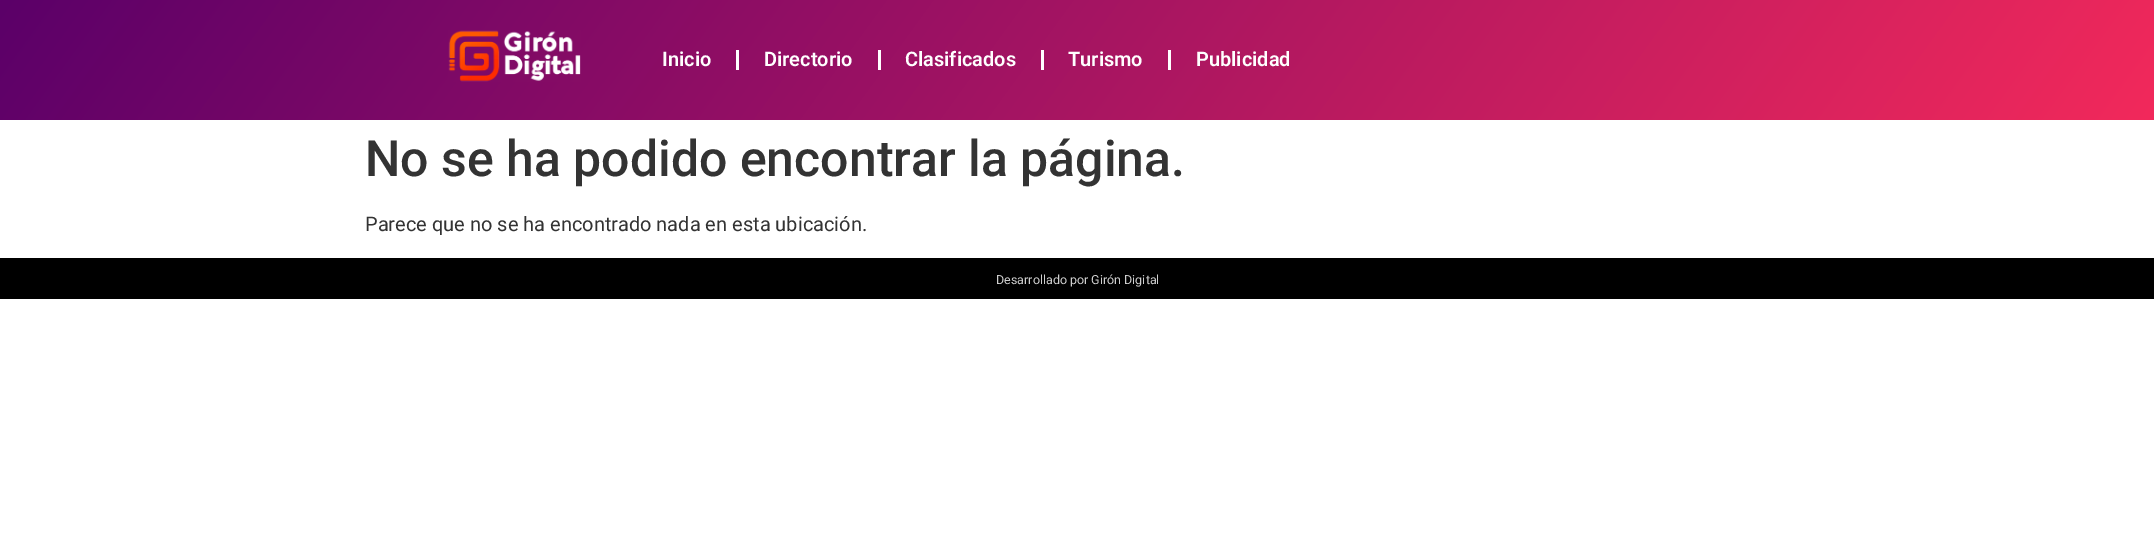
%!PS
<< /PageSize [2154 557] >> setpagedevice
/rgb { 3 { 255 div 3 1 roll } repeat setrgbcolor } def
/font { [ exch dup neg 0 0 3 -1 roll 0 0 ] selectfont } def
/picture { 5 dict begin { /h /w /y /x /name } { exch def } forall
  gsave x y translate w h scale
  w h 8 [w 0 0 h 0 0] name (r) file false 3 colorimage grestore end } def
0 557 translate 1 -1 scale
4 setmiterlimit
255 255 255 rgb
0 0 2154 557 rectfill
gsave 0 0 moveto 2154 0 lineto 2154 120 lineto 0 120 lineto closepath clip newpath
<< /ShadingType 2 /ColorSpace /DeviceRGB /Coords [344 -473 1811 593] /Extend [true true] /Function << /FunctionType 2 /Domain [0 1] /C0 [0.357 0 0.412] /C1 [0.949 0.161 0.357] /N 1 >> >> shfill grestore
(img/1.rgb) 448 30 133 52 picture
[
  [736 50 3 20 255 255 255]
  [878 50 3 20 255 255 255]
  [1041 50 3 20 255 255 255]
  [1168 50 3 20 255 255 255]
  [0 258 2154 41 0 0 0]
] { aload pop rgb rectfill } forall
/Roboto-SemiBold 20 font
255 255 255 rgb
[
  [(Inicio) 662 66]
  [(Directorio) 764 66]
  [(Clasificados) 905 66]
  [(Turismo) 1068 66]
  [(Publicidad) 1196 66]
] { aload pop moveto show } forall
/Roboto-Medium 50 font
51 51 51 rgb
365 176 moveto (No se ha podido encontrar la página.) show
/Roboto-Regular 20 font
365 231 moveto (Parece que no se ha encontrado nada en esta ubicación.) show
/Roboto-Regular 12.5 font
207 207 207 rgb
996 284 moveto (Desarrollado por Girón Digital) show
showpage
